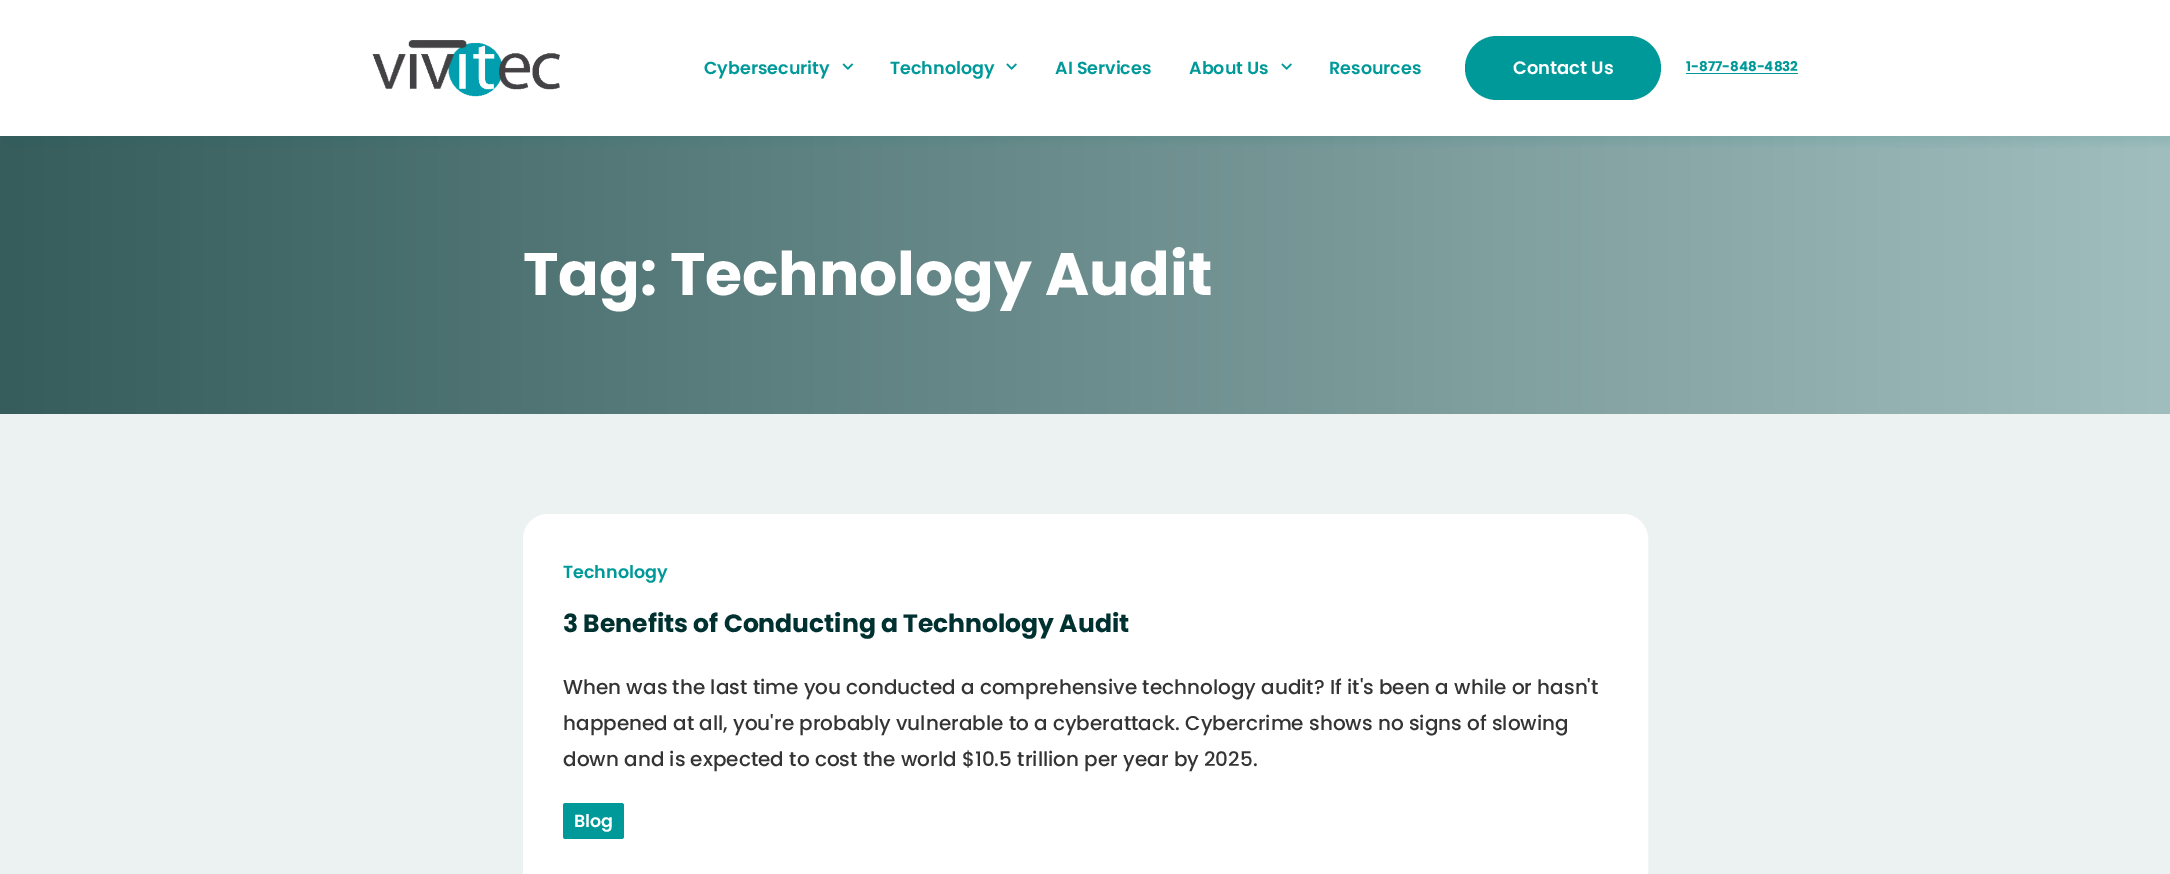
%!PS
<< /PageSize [2170 874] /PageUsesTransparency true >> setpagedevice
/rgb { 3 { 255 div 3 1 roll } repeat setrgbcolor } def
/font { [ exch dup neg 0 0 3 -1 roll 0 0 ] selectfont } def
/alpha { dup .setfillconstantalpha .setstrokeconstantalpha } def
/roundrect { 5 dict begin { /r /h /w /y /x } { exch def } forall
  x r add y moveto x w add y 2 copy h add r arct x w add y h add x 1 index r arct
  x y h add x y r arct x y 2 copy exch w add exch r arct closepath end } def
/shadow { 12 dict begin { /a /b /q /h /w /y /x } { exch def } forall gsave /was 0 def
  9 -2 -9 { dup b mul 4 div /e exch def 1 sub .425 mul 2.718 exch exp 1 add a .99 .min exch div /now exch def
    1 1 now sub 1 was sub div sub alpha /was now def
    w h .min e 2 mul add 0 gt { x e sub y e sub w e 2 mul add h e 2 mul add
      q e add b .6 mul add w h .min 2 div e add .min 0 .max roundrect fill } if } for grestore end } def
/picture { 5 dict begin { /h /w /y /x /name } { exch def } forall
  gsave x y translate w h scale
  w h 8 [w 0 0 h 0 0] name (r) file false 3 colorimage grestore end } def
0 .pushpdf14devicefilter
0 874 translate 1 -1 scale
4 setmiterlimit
255 255 255 rgb
0 0 2170 874 rectfill
gsave 0 136 moveto 2170 136 lineto 2170 414 lineto 0 414 lineto closepath clip newpath
<< /ShadingType 2 /ColorSpace /DeviceRGB /Coords [0 275 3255 275] /Extend [true true] /Function << /FunctionType 2 /Domain [0 1] /C0 [0.212 0.361 0.361] /C1 [0.843 0.937 0.937] /N 1 >> >> shfill grestore
gsave
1 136 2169 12 rectclip
0 113 113 rgb
6 6 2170 137 0 6 0.11 shadow
grestore
(img/1.rgb) 372 40 188 57 picture
(img/2.rgb) 842 63 11 7 picture
(img/3.rgb) 1006 63 11 7 picture
(img/3.rgb) 1281 63 11 7 picture
0 153 153 rgb
1465 36 196 64 32 roundrect fill
1686 73 112 1 rectfill
236 242 242 rgb
0 414 2170 460 rectfill
255 255 255 rgb
524.5 515.5 1122 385 23.5 roundrect gsave fill grestore
3 setlinewidth
stroke
0 153 153 rgb
563 803 61 36 2.5 roundrect fill
/Poppins-SemiBold 17.5 font
[
  [(Cybersecurity) 704 74]
  [(Technology) 890 74]
  [(AI Services) 1055 74]
  [(About Us) 1189 74]
  [(Resources) 1329 74]
] { aload pop moveto show } forall
/Poppins-SemiBold 18 font
255 255 255 rgb
1513 74 moveto (Contact Us) show
/Poppins-Bold 13.5 font
0 153 153 rgb
1686 71 moveto (1-877-848-4832) show
/Poppins-Bold 60 font
255 255 255 rgb
523 295 moveto (Tag: Technology Audit) show
/Poppins-SemiBold 17.5 font
0 153 153 rgb
563 578 moveto (Technology) show
/Poppins-Bold 25 font
0 49 49 rgb
563 632 moveto (3 Benefits of Conducting a Technology Audit) show
/Poppins-Medium 20 font
52 52 52 rgb
[
  [(When was the last time you conducted a comprehensive technology audit? If it's been a while or hasn't) 563 694]
  [(happened at all, you're probably vulnerable to a cyberattack. Cybercrime shows no signs of slowing) 563 730]
  [(down and is expected to cost the world $10.5 trillion per year by 2025.) 563 766]
] { aload pop moveto show } forall
/Poppins-SemiBold 17.5 font
255 255 255 rgb
574 827 moveto (Blog) show
.poppdf14devicefilter showpage
